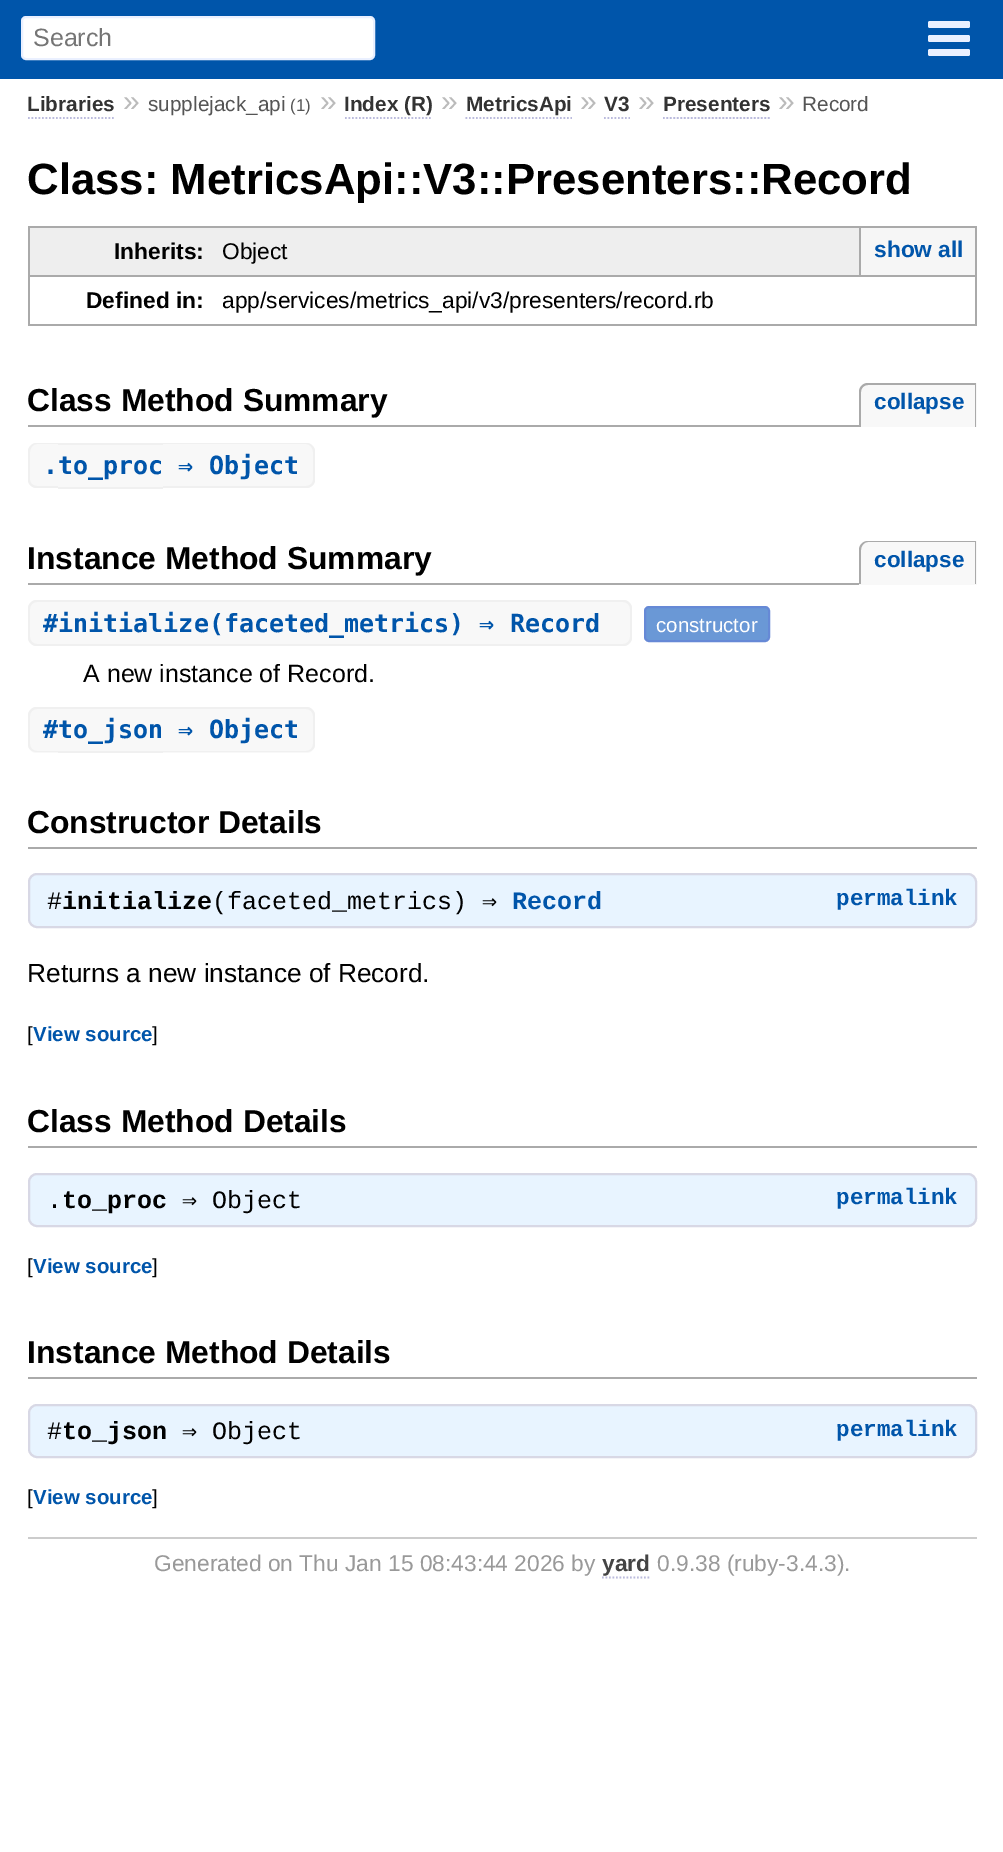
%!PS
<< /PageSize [1003 1852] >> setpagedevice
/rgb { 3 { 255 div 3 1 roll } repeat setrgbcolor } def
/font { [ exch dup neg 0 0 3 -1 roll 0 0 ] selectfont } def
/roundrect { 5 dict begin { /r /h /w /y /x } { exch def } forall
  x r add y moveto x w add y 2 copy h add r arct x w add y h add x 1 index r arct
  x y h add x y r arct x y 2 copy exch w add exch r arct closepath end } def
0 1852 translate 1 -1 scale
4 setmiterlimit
255 255 255 rgb
0 0 1003 1852 rectfill
0 85 170 rgb
0 0 1003 79 rectfill
255 255 255 rgb
22 17 352 42 4 roundrect gsave fill grestore
234 240 255 rgb
2 setlinewidth
stroke
928 21 42 7 2 roundrect fill
928 35 42 7 2 roundrect fill
928 49 42 7 2 roundrect fill
187 187 221 rgb
1.8 setlinewidth
[1.75 1.75] 0 setdash
28 118 moveto 115.5 118 lineto stroke
345 118 moveto 432 118 lineto stroke
465.5 118 moveto 572 118 lineto stroke
604 118 moveto 630 118 lineto stroke
663 118 moveto 770 118 lineto stroke
[
  [30 228 829 47 238 238 238]
  [28 226 949 2 170 170 170]
  [28 226 2 49 170 170 170]
  [28 275 949 2 170 170 170]
  [975 226 2 100 170 170 170]
  [861 228 114 47 246 246 246]
  [859 228 2 47 170 170 170]
  [28 324 194 2 170 170 170]
  [28 275 2 51 170 170 170]
  [222 324 755 2 170 170 170]
  [28 425 831 2 170 170 170]
] { aload pop rgb rectfill } forall
248 248 248 rgb
868 383 moveto 977 383 lineto 977 427 lineto 859 427 lineto 859 392 lineto 859 387 863 383 868 383 curveto closepath fill
170 170 170 rgb
868 383 moveto 976 383 lineto 976 427 lineto 859 427 lineto 859 392 lineto 859 387 863 383 868 383 curveto closepath 868 385 moveto 975 385 lineto 975 427 lineto 861 427 lineto 861 392 lineto 861 388 864 385 868 385 curveto closepath eofill
248 248 248 rgb
37 443 moveto 58 443 lineto 58 488 lineto 37 488 lineto 32 488 28 484 28 479 curveto 28 452 lineto 28 447 32 443 37 443 curveto closepath fill
240 240 240 rgb
37 443 moveto 58 443 lineto 58 488 lineto 37 488 lineto 32 488 28 484 28 480 curveto 28 452 lineto 28 447 32 443 37 443 curveto closepath 37 444 moveto 58 444 lineto 58 486 lineto 37 486 lineto 33 486 30 483 30 480 curveto 30 452 lineto 30 448 33 444 37 444 curveto closepath eofill
[
  [58 445 105 42 248 248 248]
  [58 443 105 2 240 240 240]
  [58 487 105 2 240 240 240]
] { aload pop rgb rectfill } forall
248 248 248 rgb
163 443 moveto 306 443 lineto 311 443 315 447 315 452 curveto 315 479 lineto 315 484 311 488 306 488 curveto 163 488 lineto closepath fill
240 240 240 rgb
163 443 moveto 306 443 lineto 311 443 315 447 315 452 curveto 315 480 lineto 315 484 311 488 306 488 curveto 163 488 lineto closepath 163 444 moveto 306 444 lineto 310 444 313 448 313 452 curveto 313 480 lineto 313 483 310 486 306 486 curveto 163 486 lineto closepath eofill
170 170 170 rgb
28 583 831 2 rectfill
248 248 248 rgb
868 541 moveto 977 541 lineto 977 585 lineto 859 585 lineto 859 550 lineto 859 545 863 541 868 541 curveto closepath fill
170 170 170 rgb
868 541 moveto 976 541 lineto 976 584 lineto 859 584 lineto 859 550 lineto 859 545 863 541 868 541 curveto closepath 868 542 moveto 975 542 lineto 975 584 lineto 861 584 lineto 861 550 lineto 861 546 864 542 868 542 curveto closepath eofill
248 248 248 rgb
37 600 moveto 58 600 lineto 58 646 lineto 37 646 lineto 32 646 28 642 28 637 curveto 28 609 lineto 28 604 32 600 37 600 curveto closepath fill
240 240 240 rgb
37 600 moveto 58 600 lineto 58 646 lineto 37 646 lineto 32 646 28 642 28 637 curveto 28 609 lineto 28 604 32 600 37 600 curveto closepath 37 602 moveto 58 602 lineto 58 644 lineto 37 644 lineto 33 644 30 641 30 637 curveto 30 609 lineto 30 605 33 602 37 602 curveto closepath eofill
[
  [58 602 150 42 248 248 248]
  [58 600 150 2 240 240 240]
  [58 644 150 2 240 240 240]
] { aload pop rgb rectfill } forall
248 248 248 rgb
208 600 moveto 623 600 lineto 628 600 632 604 632 609 curveto 632 637 lineto 632 642 628 646 623 646 curveto 208 646 lineto closepath fill
240 240 240 rgb
208 600 moveto 623 600 lineto 628 600 632 604 632 609 curveto 632 637 lineto 632 642 628 646 623 646 curveto 208 646 lineto closepath 208 602 moveto 623 602 lineto 627 602 630 605 630 609 curveto 630 637 lineto 630 641 627 644 623 644 curveto 208 644 lineto closepath eofill
106 152 214 rgb
645 607 124 34 4 roundrect gsave fill grestore
102 137 214 rgb
2 setlinewidth
[] 0 setdash
stroke
248 248 248 rgb
37 707 moveto 58 707 lineto 58 753 lineto 37 753 lineto 32 753 28 749 28 744 curveto 28 716 lineto 28 711 32 707 37 707 curveto closepath fill
240 240 240 rgb
37 707 moveto 58 707 lineto 58 752 lineto 37 752 lineto 32 752 28 749 28 744 curveto 28 716 lineto 28 711 32 707 37 707 curveto closepath 37 709 moveto 58 709 lineto 58 751 lineto 37 751 lineto 33 751 30 748 30 744 curveto 30 716 lineto 30 712 33 709 37 709 curveto closepath eofill
[
  [58 709 105 42 248 248 248]
  [58 707 105 2 240 240 240]
  [58 751 105 2 240 240 240]
] { aload pop rgb rectfill } forall
248 248 248 rgb
163 707 moveto 306 707 lineto 311 707 315 711 315 716 curveto 315 744 lineto 315 749 311 753 306 753 curveto 163 753 lineto closepath fill
240 240 240 rgb
163 707 moveto 306 707 lineto 311 707 315 711 315 716 curveto 315 744 lineto 315 749 311 752 306 752 curveto 163 752 lineto closepath 163 709 moveto 306 709 lineto 310 709 313 712 313 716 curveto 313 744 lineto 313 748 310 751 306 751 curveto 163 751 lineto closepath eofill
170 170 170 rgb
28 847 949 2 rectfill
232 244 255 rgb
29 874 947 53 8 roundrect gsave fill grestore
216 216 229 rgb
stroke
170 170 170 rgb
28 1146 949 2 rectfill
232 244 255 rgb
29 1174 947 52 8 roundrect gsave fill grestore
216 216 229 rgb
stroke
170 170 170 rgb
28 1377 949 2 rectfill
232 244 255 rgb
29 1405 947 52 8 roundrect gsave fill grestore
216 216 229 rgb
stroke
204 204 204 rgb
28 1537 949 2 rectfill
187 187 221 rgb
1.8 setlinewidth
[1.75 1.75] 0 setdash
602 1577.5 moveto 651 1577.5 lineto stroke
/LiberationSans-Regular 25 font
117 117 117 rgb
33 46 moveto (Search) show
/LiberationSans-Bold 20.75 font
51 51 51 rgb
27 111 moveto (Libraries) show
/LiberationSans-Regular 30 font
187 187 187 rgb
123 111 moveto (») show
/LiberationSans-Regular 20.75 font
85 85 85 rgb
148 111 moveto (supplejack_api) show
/LiberationSans-Regular 17 font
290 111 moveto (\(1\)) show
/LiberationSans-Regular 30 font
187 187 187 rgb
320 111 moveto (») show
/LiberationSans-Bold 20.75 font
51 51 51 rgb
344 111 moveto (Index \(R\)) show
/LiberationSans-Regular 30 font
187 187 187 rgb
441 111 moveto (») show
/LiberationSans-Bold 20.75 font
51 51 51 rgb
466 111 moveto (MetricsApi) show
/LiberationSans-Regular 30 font
187 187 187 rgb
580 111 moveto (») show
/LiberationSans-Bold 20.75 font
51 51 51 rgb
604 111 moveto (V3) show
/LiberationSans-Regular 30 font
187 187 187 rgb
638 111 moveto (») show
/LiberationSans-Bold 20.75 font
51 51 51 rgb
663 111 moveto (Presenters) show
/LiberationSans-Regular 30 font
187 187 187 rgb
778 111 moveto (») show
/LiberationSans-Regular 20.75 font
85 85 85 rgb
802 111 moveto (Record) show
/LiberationSans-Bold 43.75 font
0 0 0 rgb
27 194 moveto (Class: MetricsApi::V3::Presenters::Record) show
/LiberationSans-Bold 22.75 font
114 259 moveto (Inherits:) show
/LiberationSans-Regular 22.75 font
222 259 moveto (Object) show
/LiberationSans-Bold 22.75 font
0 85 170 rgb
874 257 moveto (show all) show
0 0 0 rgb
86 308 moveto (Defined in:) show
/LiberationSans-Regular 22.75 font
222 308 moveto (app/services/metrics_api/v3/presenters/record.rb) show
/LiberationSans-Bold 31.8 font
27 411 moveto (Class Method Summary) show
/LiberationSans-Bold 22.5 font
0 85 170 rgb
874 409 moveto (collapse) show
/DejaVuSansMono-Bold 25 font
43 474 moveto (.to_proc ⇒ Object) show
/LiberationSans-Bold 31.8 font
0 0 0 rgb
27 569 moveto (Instance Method Summary) show
/LiberationSans-Bold 22.5 font
0 85 170 rgb
874 567 moveto (collapse) show
/DejaVuSansMono-Bold 25 font
43 632 moveto (#initialize\(faceted_metrics\) ⇒ Record) show
/LiberationSans-Regular 20.5 font
255 255 255 rgb
656 632 moveto (constructor) show
/LiberationSans-Regular 25 font
0 0 0 rgb
83 682 moveto (A new instance of Record.) show
/DejaVuSansMono-Bold 25 font
0 85 170 rgb
43 738 moveto (#to_json ⇒ Object) show
/LiberationSans-Bold 31.8 font
0 0 0 rgb
27 833 moveto (Constructor Details) show
/LiberationMono-Regular 25 font
47 909 moveto (#) show
/LiberationMono-Bold 25 font
62 909 moveto (initialize) show
/LiberationMono-Regular 25 font
212 909 moveto (\(faceted_metrics\)) show
/DejaVuSansMono-Regular 25 font
482 909 moveto (⇒) show
/LiberationMono-Bold 25 font
0 85 170 rgb
512 909 moveto (Record) show
/LiberationMono-Bold 22.5 font
836 905 moveto (permalink) show
/LiberationSans-Regular 26.25 font
0 0 0 rgb
27 982 moveto (Returns a new instance of Record.) show
/LiberationSans-Regular 20.5 font
27 1041 moveto ([) show
/LiberationSans-Bold 20.5 font
0 85 170 rgb
33 1041 moveto (View source) show
/LiberationSans-Regular 20.5 font
0 0 0 rgb
152 1041 moveto (]) show
/LiberationSans-Bold 31.8 font
27 1132 moveto (Class Method Details) show
/LiberationMono-Regular 25 font
47 1208 moveto (.) show
/LiberationMono-Bold 25 font
62 1208 moveto (to_proc) show
/DejaVuSansMono-Regular 25 font
182 1208 moveto (⇒) show
/LiberationMono-Regular 25 font
212 1208 moveto (Object) show
/LiberationMono-Bold 22.5 font
0 85 170 rgb
836 1204 moveto (permalink) show
/LiberationSans-Regular 20.5 font
0 0 0 rgb
27 1273 moveto ([) show
/LiberationSans-Bold 20.5 font
0 85 170 rgb
33 1273 moveto (View source) show
/LiberationSans-Regular 20.5 font
0 0 0 rgb
152 1273 moveto (]) show
/LiberationSans-Bold 31.8 font
27 1363 moveto (Instance Method Details) show
/LiberationMono-Regular 25 font
47 1439 moveto (#) show
/LiberationMono-Bold 25 font
62 1439 moveto (to_json) show
/DejaVuSansMono-Regular 25 font
182 1439 moveto (⇒) show
/LiberationMono-Regular 25 font
212 1439 moveto (Object) show
/LiberationMono-Bold 22.5 font
0 85 170 rgb
836 1436 moveto (permalink) show
/LiberationSans-Regular 20.5 font
0 0 0 rgb
27 1504 moveto ([) show
/LiberationSans-Bold 20.5 font
0 85 170 rgb
33 1504 moveto (View source) show
/LiberationSans-Regular 20.5 font
0 0 0 rgb
152 1504 moveto (]) show
/LiberationSans-Regular 22.75 font
153 153 153 rgb
154 1571 moveto (Generated on Thu Jan 15 08:43:44 2026 by) show
/LiberationSans-Bold 22.75 font
68 68 68 rgb
602 1571 moveto (yard) show
/LiberationSans-Regular 22.75 font
153 153 153 rgb
657 1571 moveto (0.9.38 \(ruby-3.4.3\).) show
showpage
